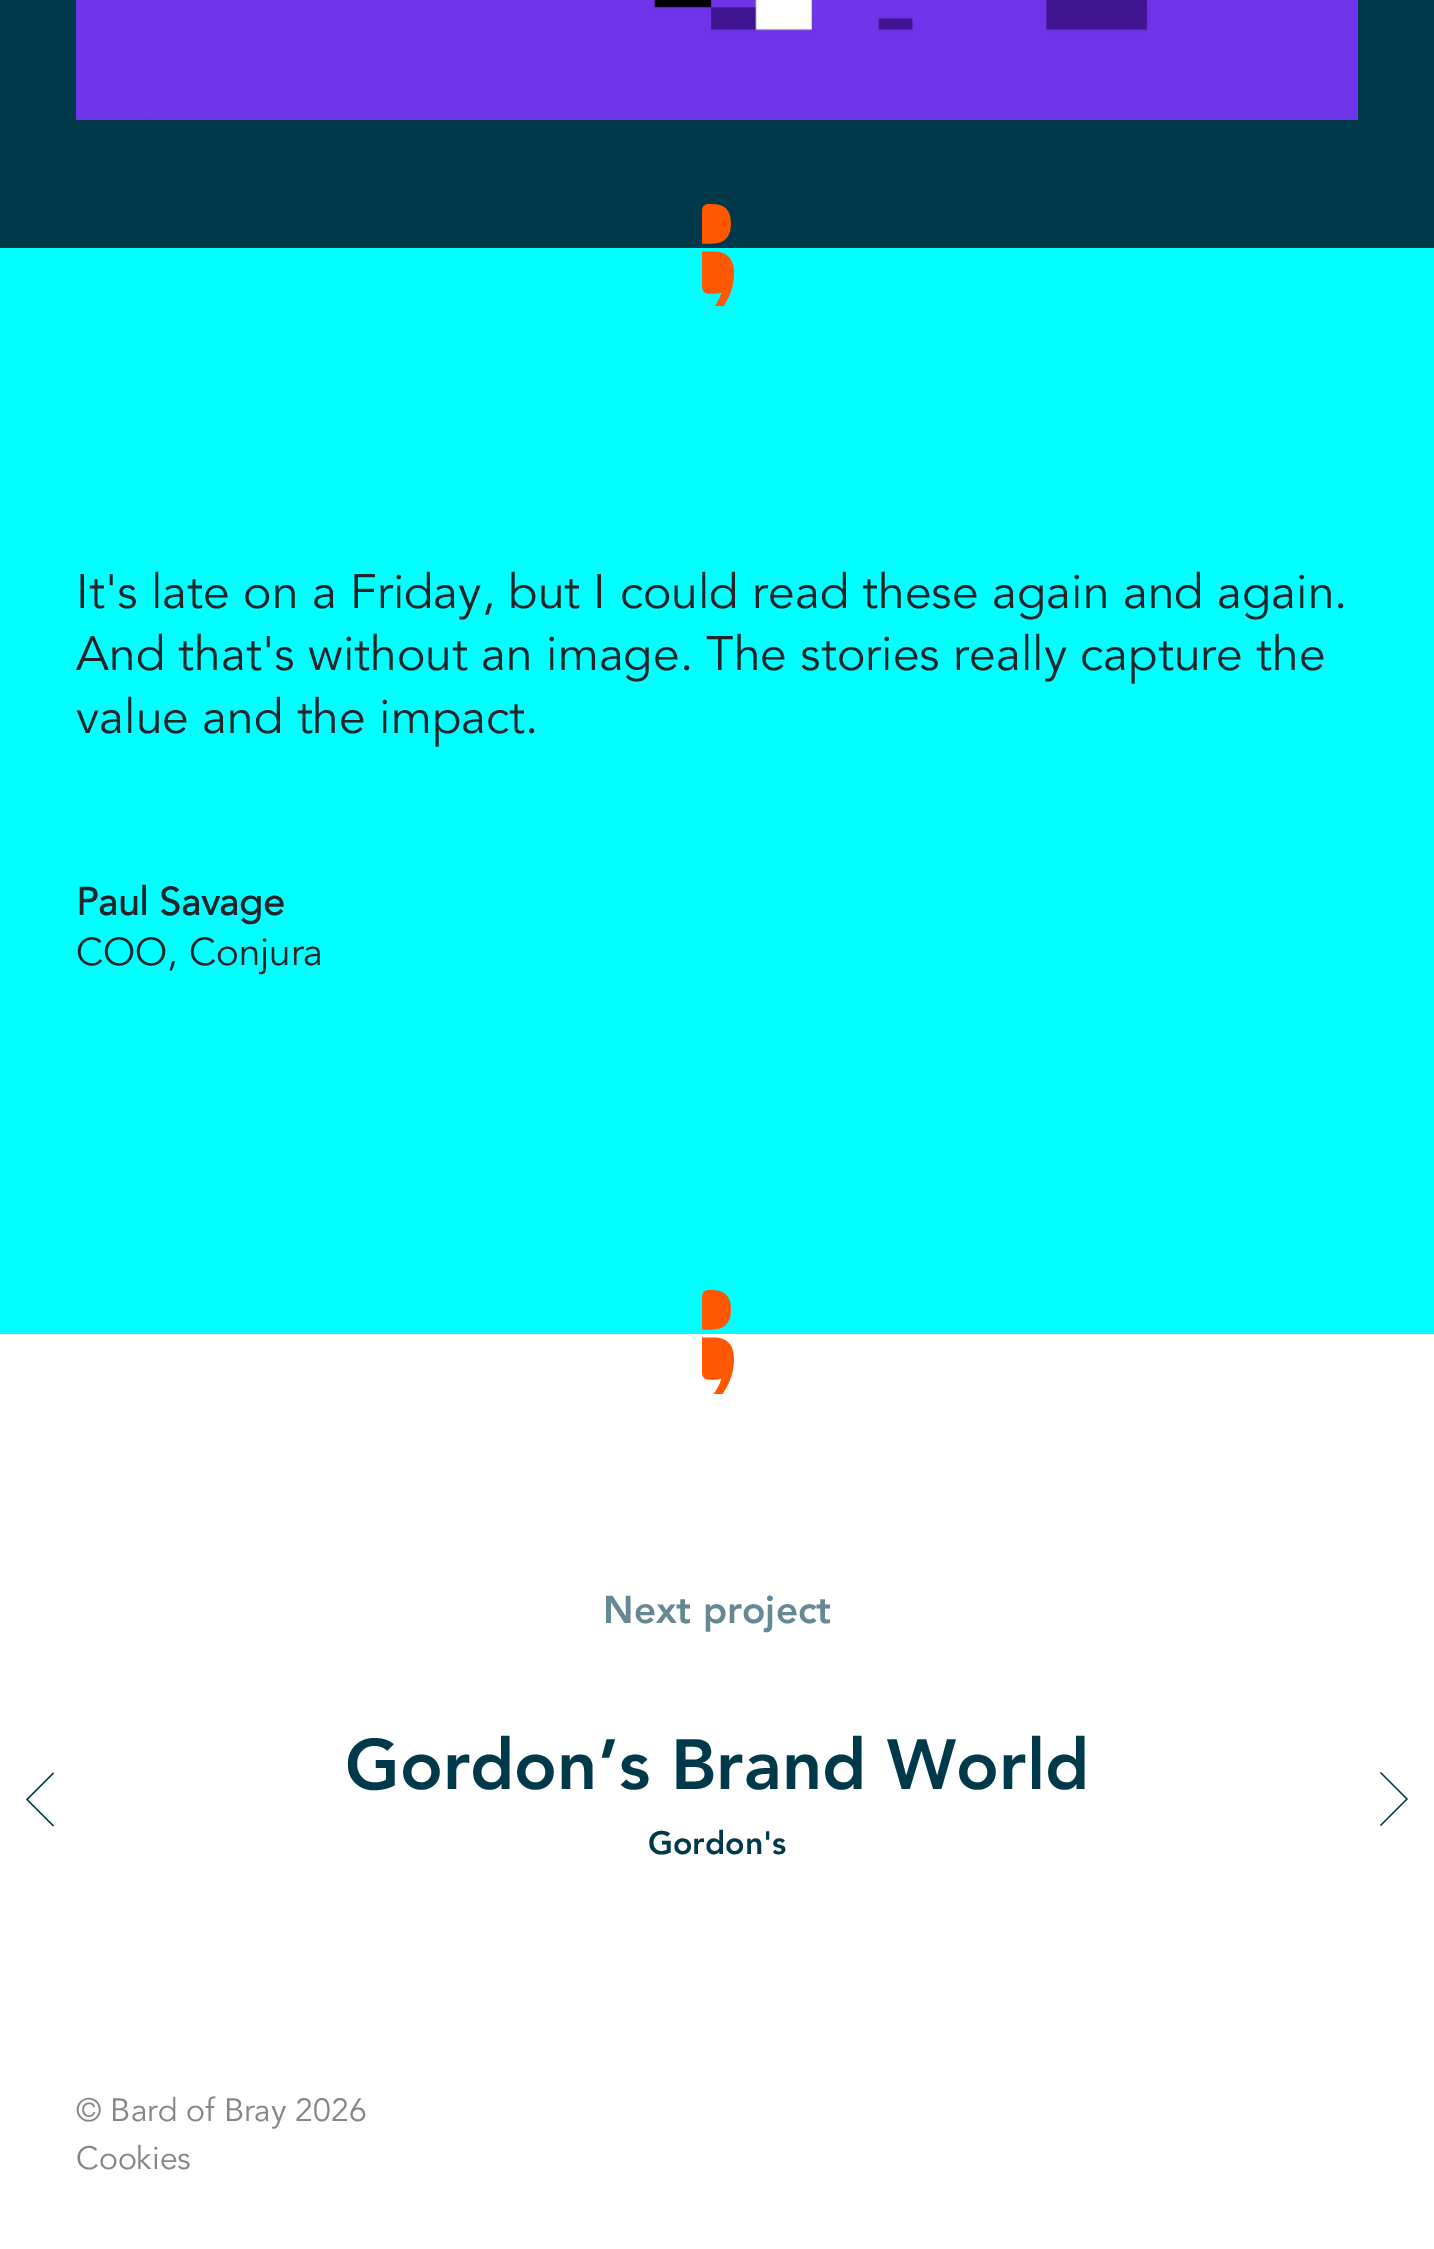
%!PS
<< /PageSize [1434 2249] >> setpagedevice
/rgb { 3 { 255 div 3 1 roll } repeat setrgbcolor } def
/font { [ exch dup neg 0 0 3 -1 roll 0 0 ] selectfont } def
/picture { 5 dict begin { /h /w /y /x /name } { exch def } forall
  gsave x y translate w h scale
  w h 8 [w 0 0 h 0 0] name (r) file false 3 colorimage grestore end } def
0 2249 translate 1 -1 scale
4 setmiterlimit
255 255 255 rgb
0 0 1434 2249 rectfill
0 57 74 rgb
0 0 1434 248 rectfill
(img/1.rgb) 76 0 1282 120 picture
0 255 255 rgb
0 248 1434 1086 rectfill
(img/2.rgb) 702 204 32 102 picture
(img/3.rgb) 702 1290 32 104 picture
0 57 74 rgb
1.4 setlinewidth
53.5 1773 moveto 27 1799.5 lineto 53.5 1826 lineto stroke
1380.5 1825.5 moveto 1407 1799 lineto 1380.5 1772.5 lineto stroke
/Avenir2-Regular 48 font
33 37 41 rgb
[
  [(It's late on a Friday, but I could read these again and again.) 76 608]
  [(And that's without an image. The stories really capture the) 76 670]
  [(value and the impact.) 76 733]
] { aload pop moveto show } forall
/Avenir-Bold 38.5 font
76 915 moveto (Paul Savage) show
/Avenir2-Regular 38.5 font
76 965 moveto (COO, Conjura) show
/Avenir-Regular 38.5 font
102 136 146 rgb
603 1623 moveto (Next project) show
/Avenir-Regular 70.4 font
0 57 74 rgb
345 1789 moveto (Gordon’s Brand World) show
/Avenir-Regular 32 font
648 1854 moveto (Gordon's) show
/Avenir2-Regular 32 font
131 134 135 rgb
76 2121 moveto (© Bard of Bray 2026) show
76 2169 moveto (Cookies) show
showpage
